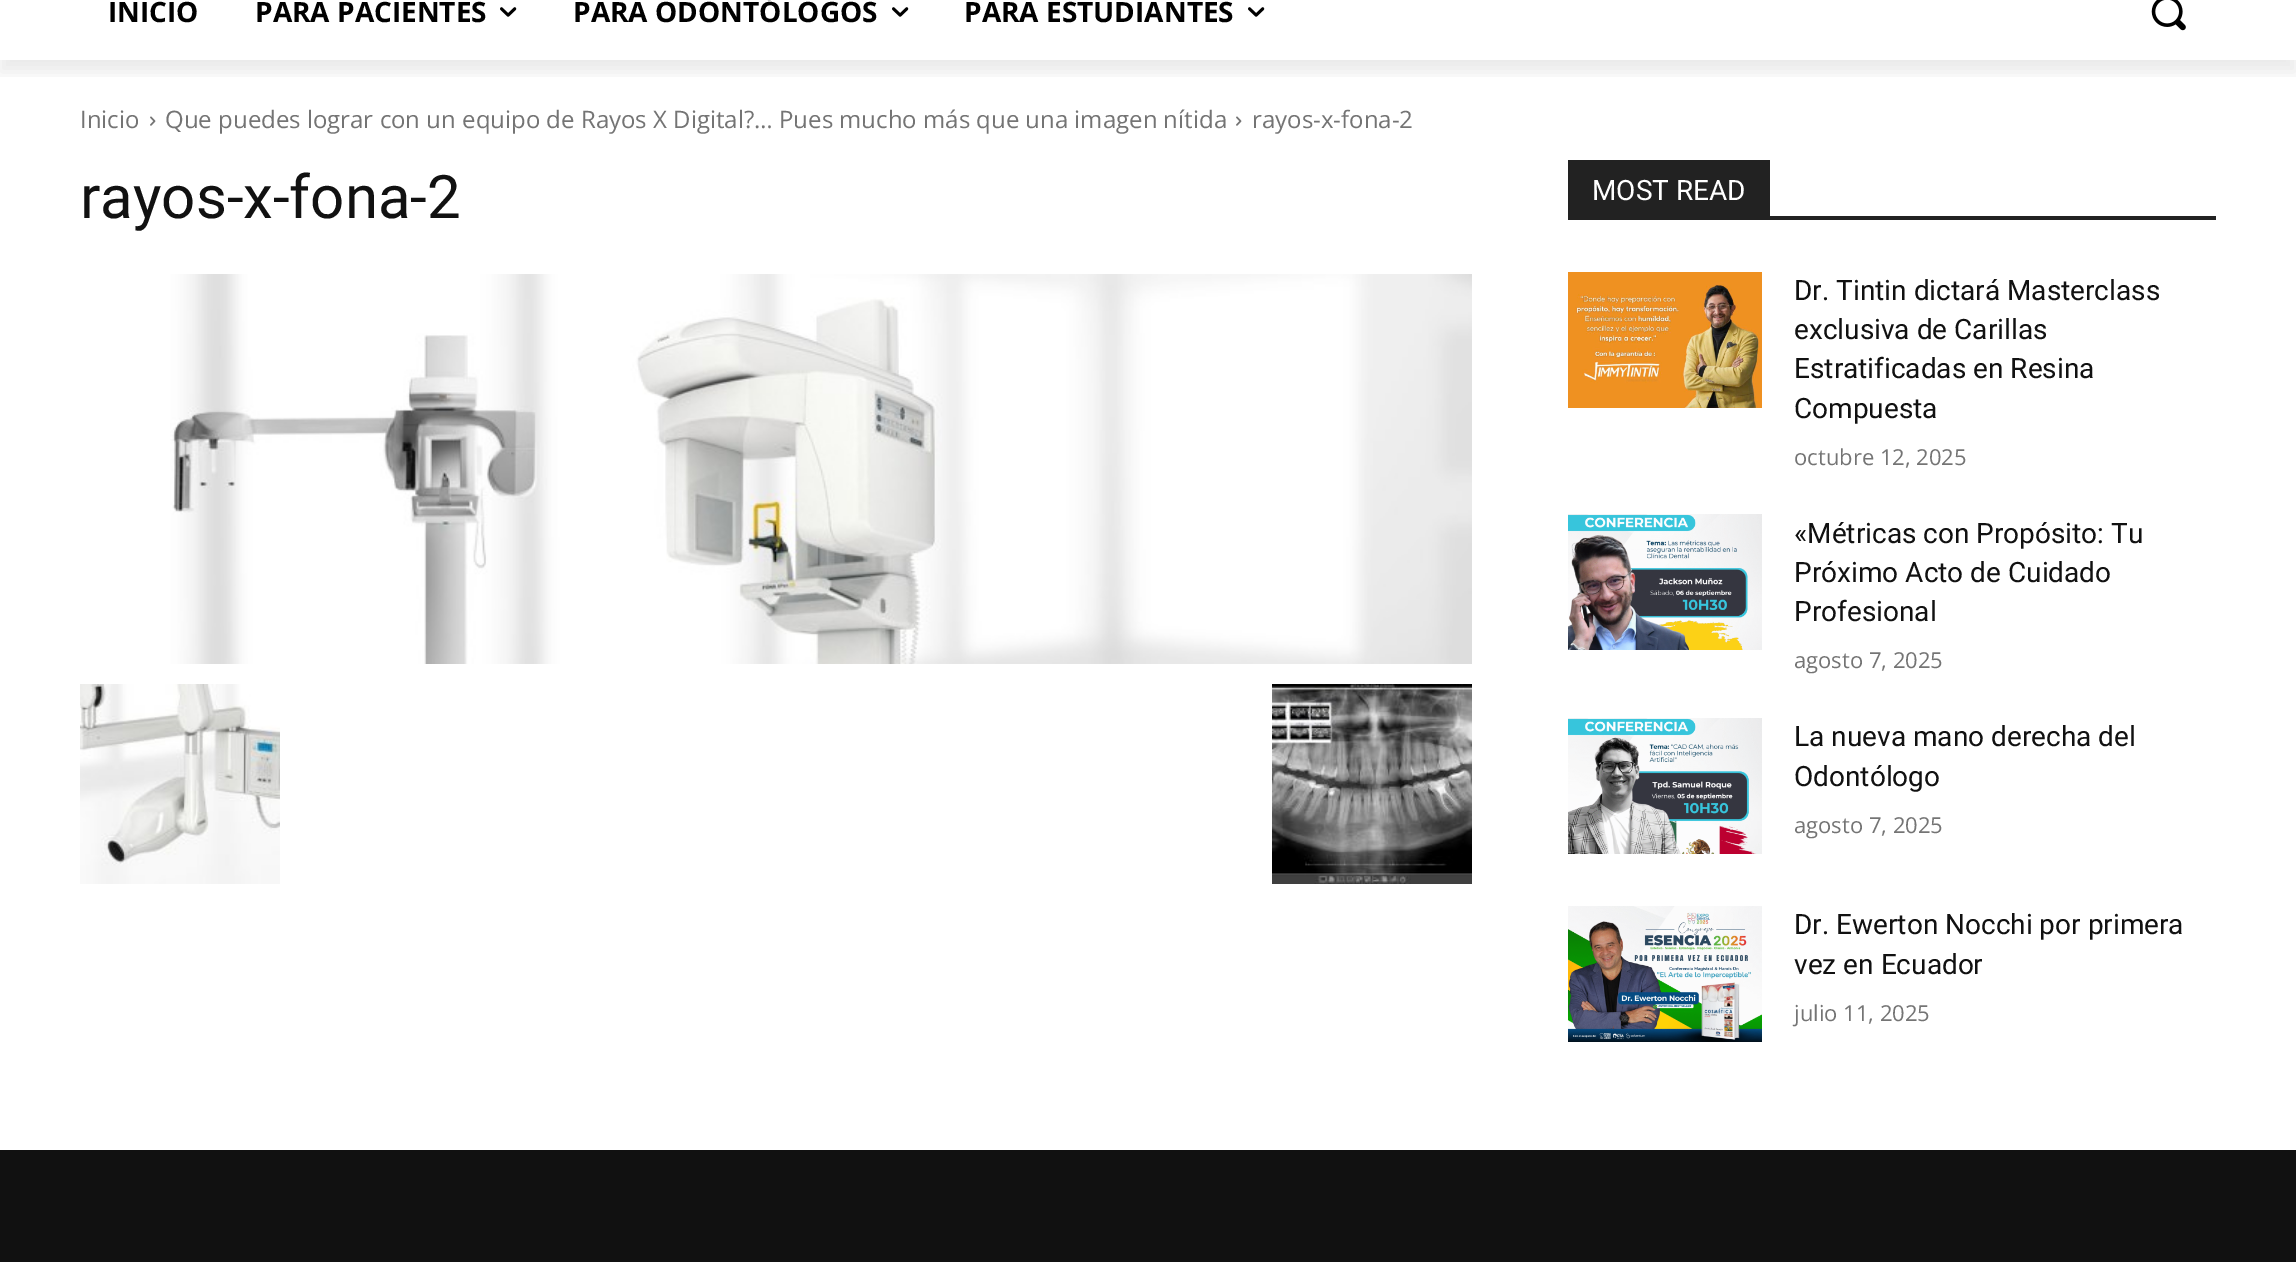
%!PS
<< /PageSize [2296 1262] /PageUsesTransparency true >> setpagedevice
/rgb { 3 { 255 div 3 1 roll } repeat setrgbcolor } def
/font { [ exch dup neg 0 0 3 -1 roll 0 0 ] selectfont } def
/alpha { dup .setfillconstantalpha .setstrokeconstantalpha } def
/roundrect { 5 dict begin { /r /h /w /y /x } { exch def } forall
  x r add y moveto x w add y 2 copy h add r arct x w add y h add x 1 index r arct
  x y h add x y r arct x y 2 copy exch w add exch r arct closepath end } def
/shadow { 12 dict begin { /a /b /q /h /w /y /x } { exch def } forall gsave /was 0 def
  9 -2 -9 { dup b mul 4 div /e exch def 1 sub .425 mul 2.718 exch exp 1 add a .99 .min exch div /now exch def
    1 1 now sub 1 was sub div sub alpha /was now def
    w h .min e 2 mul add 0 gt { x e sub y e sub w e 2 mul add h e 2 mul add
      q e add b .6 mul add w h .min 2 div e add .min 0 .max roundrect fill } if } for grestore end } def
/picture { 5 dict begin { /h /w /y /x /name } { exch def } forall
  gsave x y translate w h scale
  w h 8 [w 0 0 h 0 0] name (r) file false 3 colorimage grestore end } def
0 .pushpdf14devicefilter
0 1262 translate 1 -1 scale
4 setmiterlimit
255 255 255 rgb
0 0 2296 1262 rectfill
gsave
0 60 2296 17 rectclip
0 0 0 rgb
0 -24 2296 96 0 8 0.08 shadow
grestore
(img/1.rgb) 500 7 17 10 picture
(img/1.rgb) 892 7 17 10 picture
(img/1.rgb) 1248 7 17 10 picture
(img/2.rgb) 2151 0 35 31 picture
(img/3.rgb) 150 116 6 10 picture
(img/3.rgb) 1236 116 6 10 picture
(img/4.rgb) 170 274 1302 390 picture
(img/5.rgb) 80 684 200 200 picture
(img/6.rgb) 1272 684 200 200 picture
34 34 34 rgb
1568 216 648 4 rectfill
1568 160 202 56 rectfill
(img/7.rgb) 1568 272 194 136 picture
(img/8.rgb) 1568 514 194 136 picture
(img/9.rgb) 1568 718 194 136 picture
(img/10.rgb) 1568 906 194 136 picture
17 17 17 rgb
0 1150 2296 112 rectfill
/OpenSans-Bold 28 font
0 0 0 rgb
[
  [(INICIO) 108 22]
  [(PARA PACIENTES) 255 22]
  [(PARA ODONTÓLOGOS) 573 22]
  [(PARA ESTUDIANTES) 964 22]
] { aload pop moveto show } forall
/OpenSans-Regular 24 font
116 116 116 rgb
[
  [(Inicio) 80 128]
  [(Que puedes lograr con un equipo de Rayos X Digital?… Pues mucho más que una imagen nítida) 165 128]
  [(rayos-x-fona-2) 1252 128]
] { aload pop moveto show } forall
/Roboto-Regular 60 font
17 17 17 rgb
80 218 moveto (rayos-x-fona-2) show
/Roboto-Regular 28 font
255 255 255 rgb
1592 200 moveto (MOST READ) show
17 17 17 rgb
[
  [(Dr. Tintin dictará Masterclass) 1794 300]
  [(exclusiva de Carillas) 1794 339]
  [(Estratificadas en Resina) 1794 378]
  [(Compuesta) 1794 418]
] { aload pop moveto show } forall
/OpenSans-Regular 22 font
116 116 116 rgb
1794 465 moveto (octubre 12, 2025) show
/Roboto-Regular 28 font
17 17 17 rgb
[
  [(«Métricas con Propósito: Tu) 1794 543]
  [(Próximo Acto de Cuidado) 1794 582]
  [(Profesional) 1794 621]
] { aload pop moveto show } forall
/OpenSans-Regular 22 font
116 116 116 rgb
1794 668 moveto (agosto 7, 2025) show
/Roboto-Regular 28 font
17 17 17 rgb
1794 746 moveto (La nueva mano derecha del) show
1794 786 moveto (Odontólogo) show
/OpenSans-Regular 22 font
116 116 116 rgb
1794 833 moveto (agosto 7, 2025) show
/Roboto-Regular 28 font
17 17 17 rgb
1794 934 moveto (Dr. Ewerton Nocchi por primera) show
1794 974 moveto (vez en Ecuador) show
/OpenSans-Regular 22 font
116 116 116 rgb
1794 1021 moveto (julio 11, 2025) show
.poppdf14devicefilter showpage
